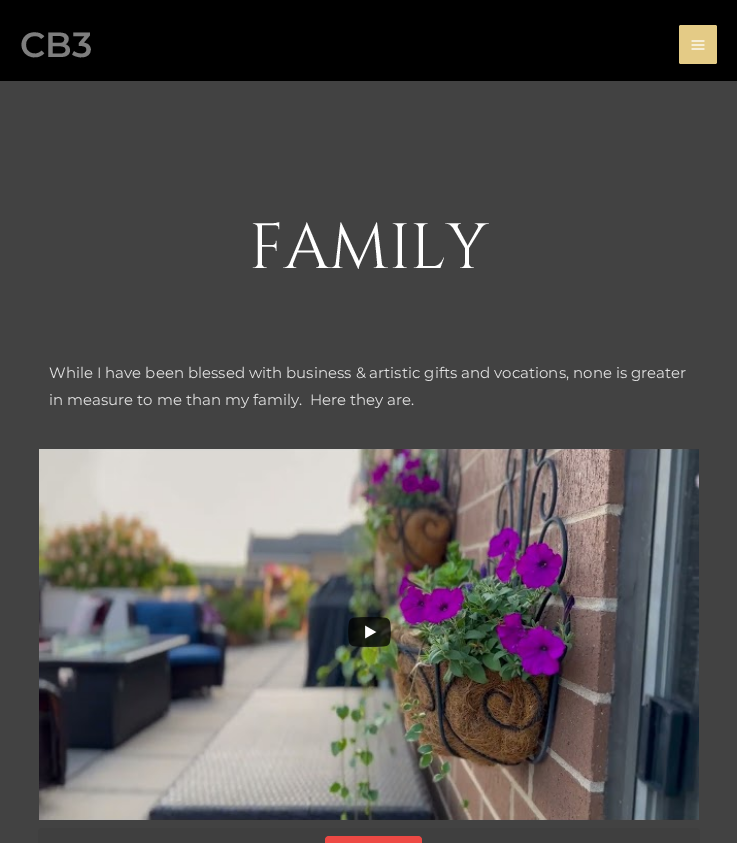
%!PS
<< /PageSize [737 843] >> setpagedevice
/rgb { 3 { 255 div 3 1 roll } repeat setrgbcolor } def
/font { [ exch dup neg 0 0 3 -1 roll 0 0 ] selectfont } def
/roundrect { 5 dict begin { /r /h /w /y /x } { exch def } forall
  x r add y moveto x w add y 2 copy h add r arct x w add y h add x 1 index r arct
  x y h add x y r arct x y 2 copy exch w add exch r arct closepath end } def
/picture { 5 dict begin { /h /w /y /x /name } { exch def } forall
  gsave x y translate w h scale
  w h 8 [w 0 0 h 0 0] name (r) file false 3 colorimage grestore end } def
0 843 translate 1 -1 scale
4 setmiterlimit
66 66 66 rgb
0 0 737 843 rectfill
0 0 0 rgb
0 0 737 81 rectfill
228 203 134 rgb
679 25 38 39 2 roundrect fill
(img/1.rgb) 691 40 14 10 picture
(img/2.rgb) 39 449 660 371 picture
255 255 255 rgb
365 639 moveto 365 625 lineto 377 632 lineto closepath fill
(img/3.rgb) 348 617 43 30 picture
63 63 63 rgb
38 828 662 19 4 roundrect fill
237 73 68 rgb
325 836 97 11 4 roundrect fill
/Montserrat-SemiBold 35 font
126 126 126 rgb
20 57 moveto (CB3) show
/Cinzel-Regular 64 font
255 255 255 rgb
249 268 moveto (FAMILY) show
/Montserrat-Regular 15 font
226 226 226 rgb
49 378 moveto (While I have been blessed with business & artistic gifts and vocations, none is greater) show
49 405 moveto (in measure to me than my family.  Here they are.) show
showpage
